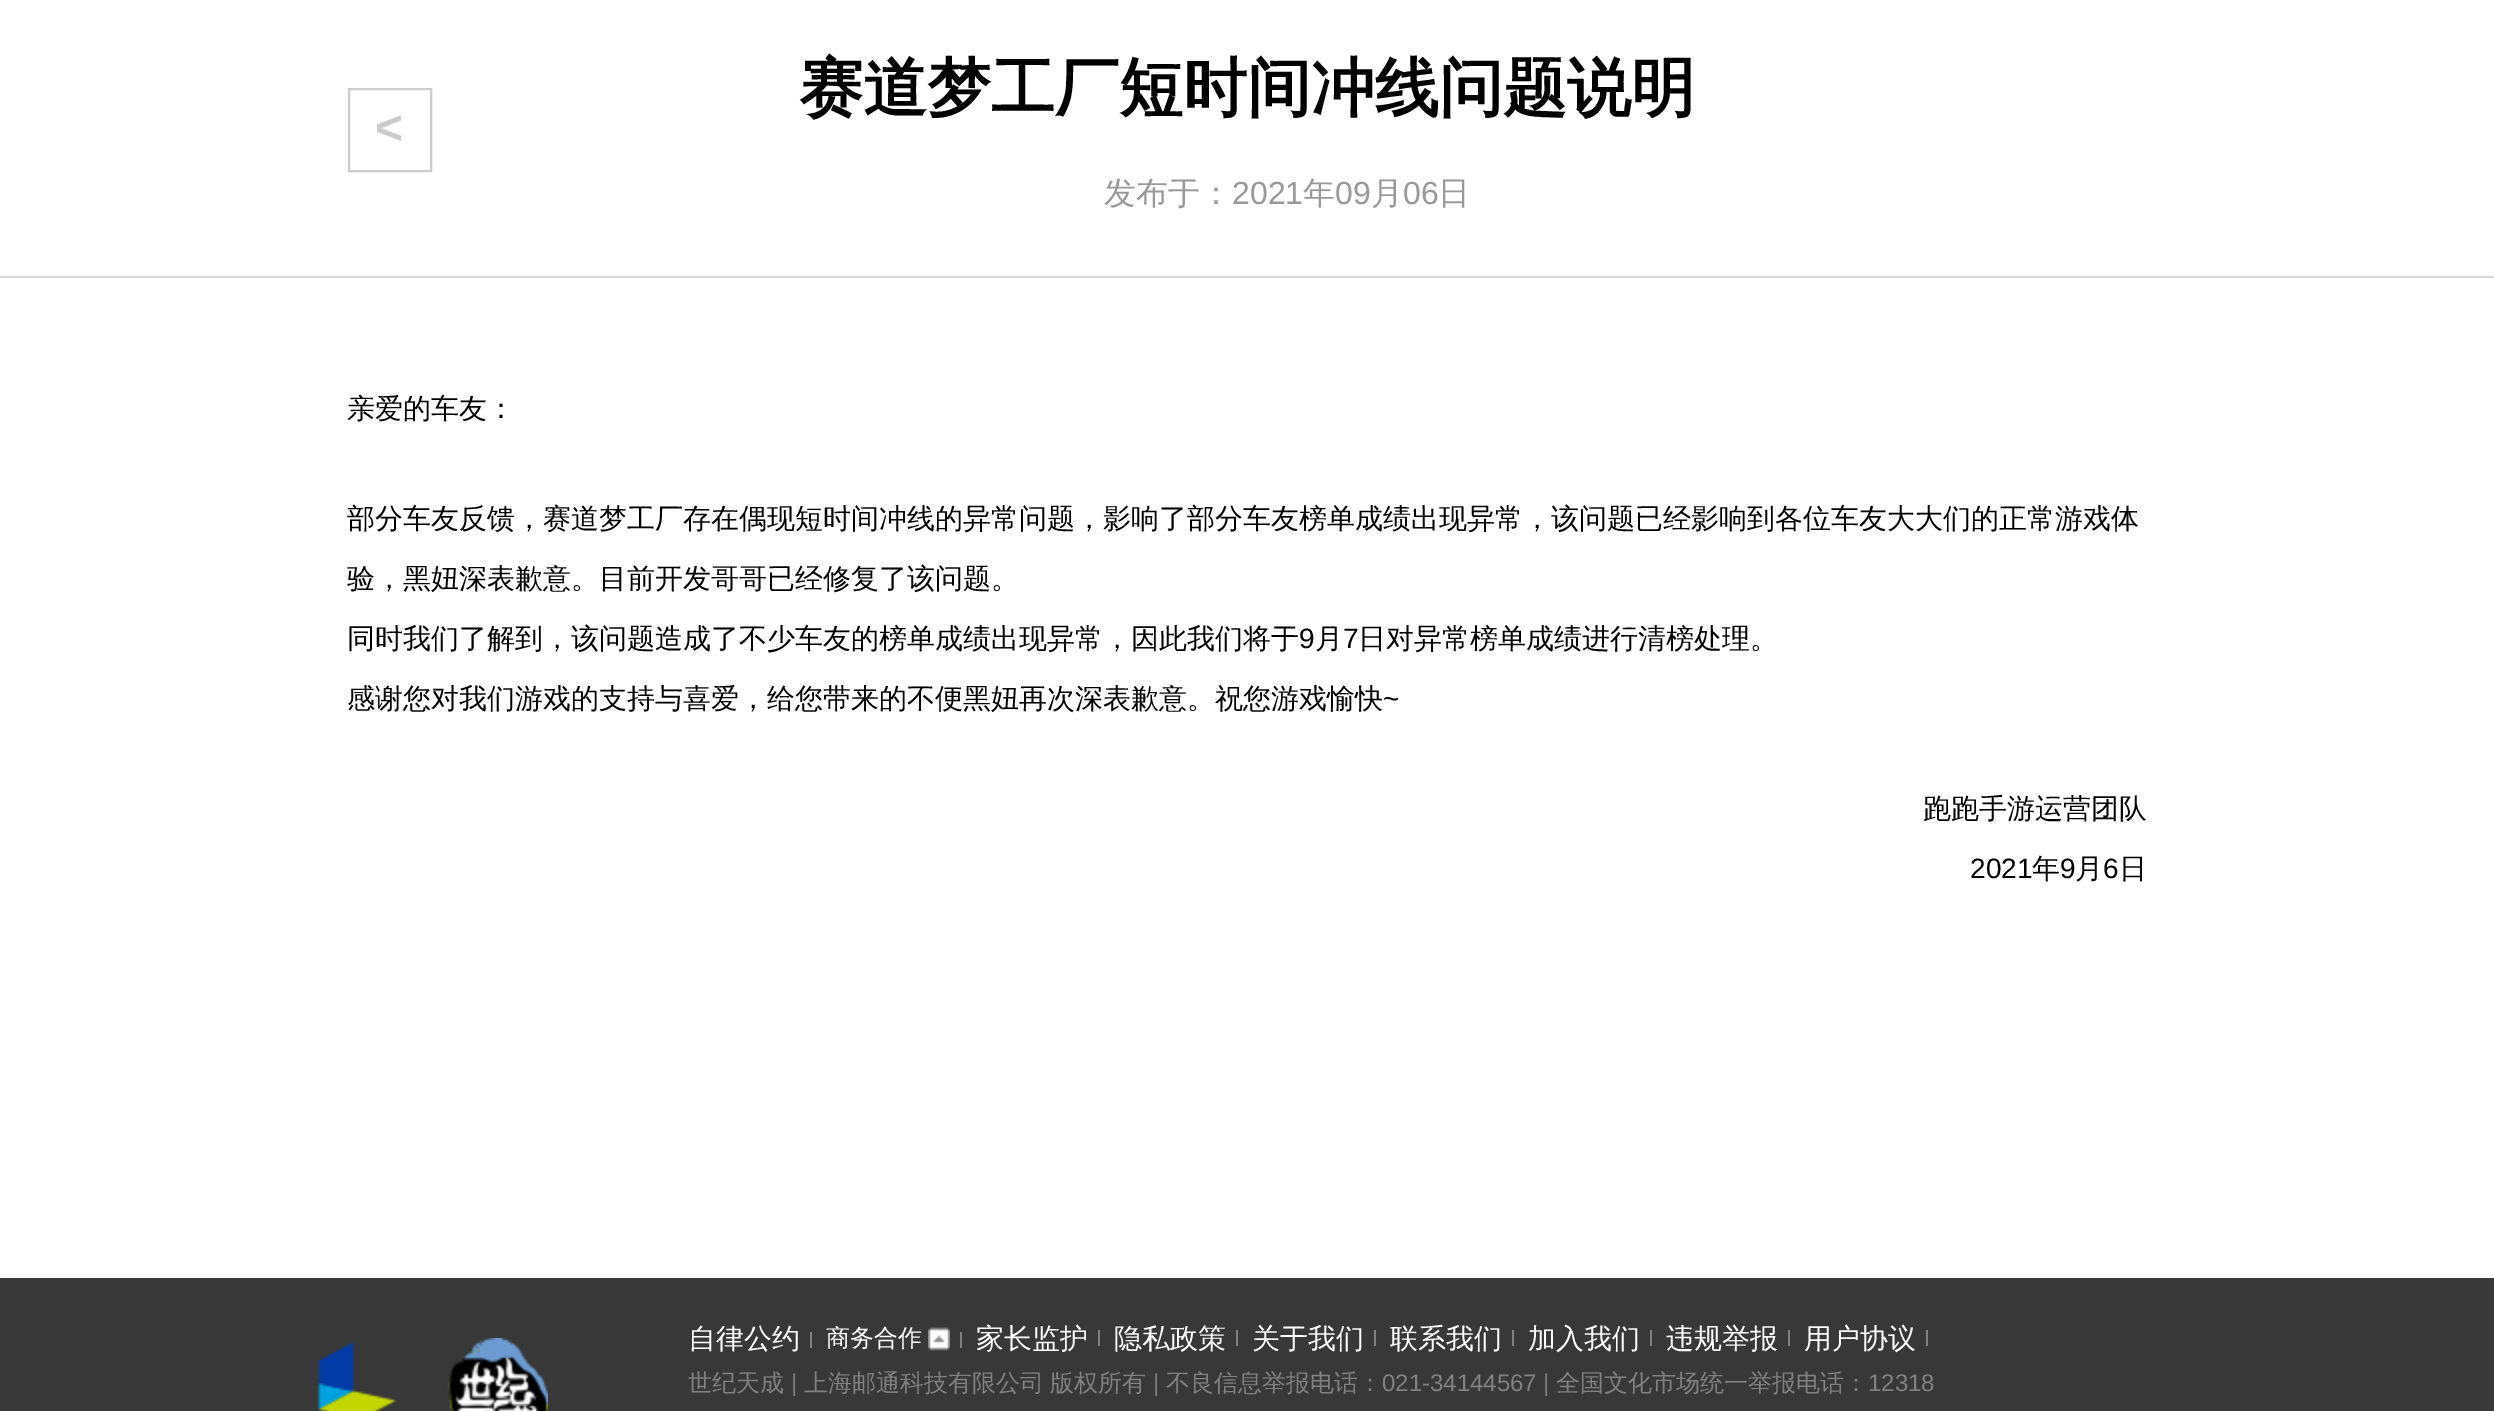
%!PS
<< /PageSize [2494 1411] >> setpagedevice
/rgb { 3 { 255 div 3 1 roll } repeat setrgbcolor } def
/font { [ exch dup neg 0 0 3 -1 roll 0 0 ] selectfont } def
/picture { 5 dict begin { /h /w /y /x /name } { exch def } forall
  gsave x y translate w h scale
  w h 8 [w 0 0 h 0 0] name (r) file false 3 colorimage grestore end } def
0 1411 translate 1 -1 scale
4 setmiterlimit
255 255 255 rgb
0 0 2494 1411 rectfill
215 215 215 rgb
0 276 2494 2 rectfill
204 204 204 rgb
2 setlinewidth
349 89 82 82 rectstroke
56 56 56 rgb
0 1278 2494 133 rectfill
(img/1.rgb) 317 1338 231 73 picture
129 129 129 rgb
810 1332 2 16 rectfill
(img/2.rgb) 928 1327 22 24 picture
[
  [960 1332 2 16 129 129 129]
  [1098 1330 2 16 129 129 129]
  [1236 1330 2 16 129 129 129]
  [1374 1330 2 16 129 129 129]
  [1512 1330 2 16 129 129 129]
  [1650 1330 2 16 129 129 129]
  [1788 1330 2 16 129 129 129]
  [1926 1330 2 16 129 129 129]
] { aload pop rgb rectfill } forall
/WenQuanYiZenHei-Bold 64 font
0 0 0 rgb
799 110 moveto (赛道梦工厂短时间冲线问题说明) show
/LiberationSans-Bold 48 font
204 204 204 rgb
375 144 moveto (<) show
/WenQuanYiZenHei-Medium 32 font
153 153 153 rgb
1104 204 moveto (发布于：) show
/LiberationSans-Regular 32 font
1232 204 moveto (2021) show
/WenQuanYiZenHei-Medium 32 font
1303 204 moveto (年) show
/LiberationSans-Regular 32 font
1335 204 moveto (09) show
/WenQuanYiZenHei-Medium 32 font
1371 204 moveto (月) show
/LiberationSans-Regular 32 font
1403 204 moveto (06) show
/WenQuanYiZenHei-Medium 32 font
1438 204 moveto (日) show
/WenQuanYiZenHei-Medium 28 font
0 0 0 rgb
[
  [(亲爱的车友：) 347 418]
  [(部分车友反馈，赛道梦工厂存在偶现短时间冲线的异常问题，影响了部分车友榜单成绩出现异常，该问题已经影响到各位车友大大们的正常游戏体) 347 528]
  [(验，黑妞深表歉意。目前开发哥哥已经修复了该问题。) 347 588]
  [(同时我们了解到，该问题造成了不少车友的榜单成绩出现异常，因此我们将于) 347 648]
] { aload pop moveto show } forall
/LiberationSans-Regular 28 font
1299 648 moveto (9) show
/WenQuanYiZenHei-Medium 28 font
1315 648 moveto (月) show
/LiberationSans-Regular 28 font
1343 648 moveto (7) show
/WenQuanYiZenHei-Medium 28 font
1358 648 moveto (日对异常榜单成绩进行清榜处理。) show
347 708 moveto (感谢您对我们游戏的支持与喜爱，给您带来的不便黑妞再次深表歉意。祝您游戏愉快) show
/LiberationSans-Regular 28 font
1383 708 moveto (~) show
/WenQuanYiZenHei-Medium 28 font
1923 818 moveto (跑跑手游运营团队) show
/LiberationSans-Regular 28 font
1970 878 moveto (2021) show
/WenQuanYiZenHei-Medium 28 font
2032 878 moveto (年) show
/LiberationSans-Regular 28 font
2060 878 moveto (9) show
/WenQuanYiZenHei-Medium 28 font
2075 878 moveto (月) show
/LiberationSans-Regular 28 font
2103 878 moveto (6) show
/WenQuanYiZenHei-Medium 28 font
2119 878 moveto (日) show
255 255 255 rgb
688 1348 moveto (自律公约) show
/WenQuanYiZenHei-Medium 24 font
826 1346 moveto (商务合作) show
/WenQuanYiZenHei-Medium 28 font
[
  [(家长监护) 976 1348]
  [(隐私政策) 1114 1348]
  [(关于我们) 1252 1348]
  [(联系我们) 1390 1348]
  [(加入我们) 1528 1348]
  [(违规举报) 1666 1348]
  [(用户协议) 1804 1348]
] { aload pop moveto show } forall
/WenQuanYiZenHei-Medium 24 font
129 129 129 rgb
688 1391 moveto (世纪天成) show
/LiberationSans-Regular 24 font
791 1391 moveto (|) show
/WenQuanYiZenHei-Medium 24 font
804 1391 moveto (上海邮通科技有限公司) show
1050 1391 moveto (版权所有) show
/LiberationSans-Regular 24 font
1153 1391 moveto (|) show
/WenQuanYiZenHei-Medium 24 font
1166 1391 moveto (不良信息举报电话：) show
/LiberationSans-Regular 24 font
1382 1391 moveto (021-34144567 |) show
/WenQuanYiZenHei-Medium 24 font
1556 1391 moveto (全国文化市场统一举报电话：) show
/LiberationSans-Regular 24 font
1868 1391 moveto (12318) show
showpage
